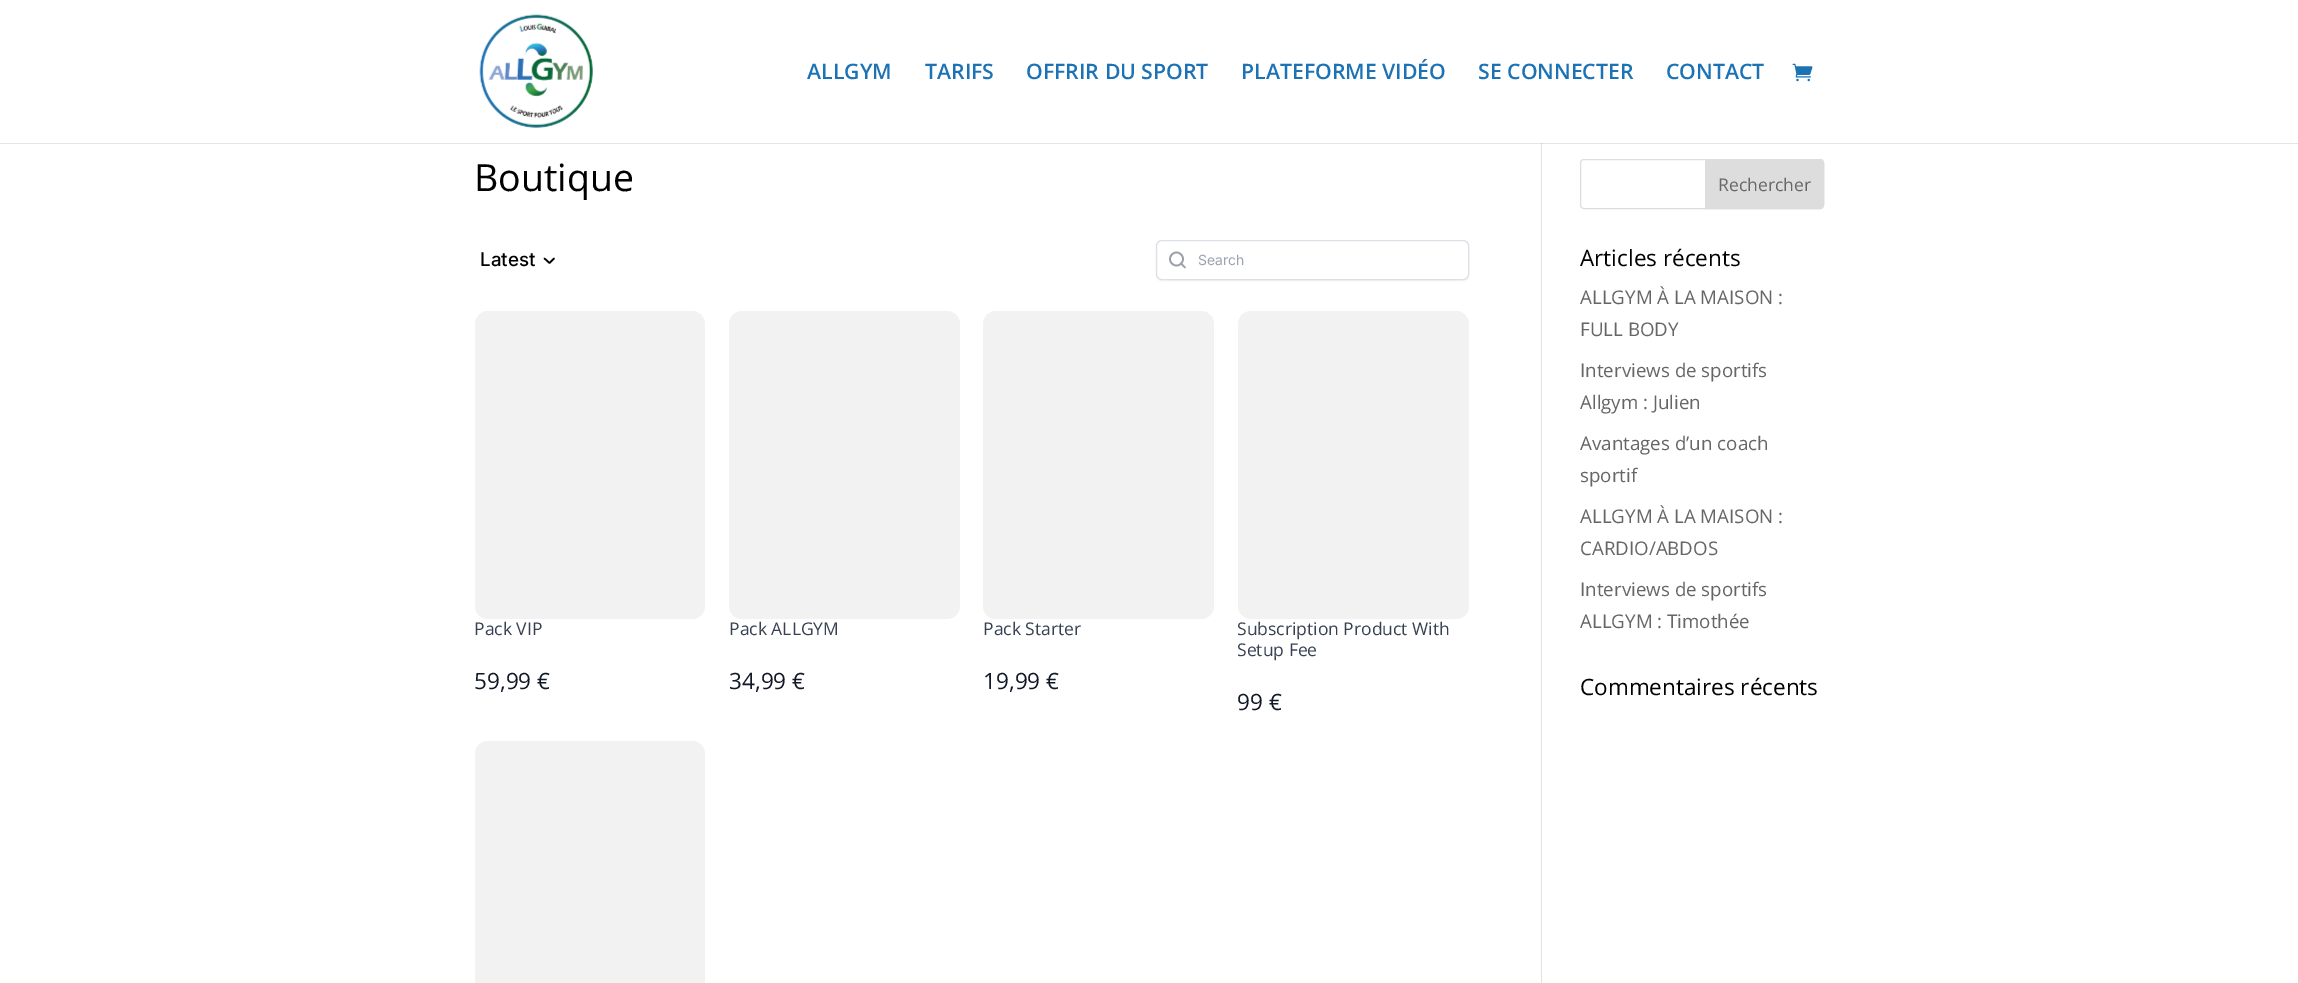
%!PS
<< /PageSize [2298 983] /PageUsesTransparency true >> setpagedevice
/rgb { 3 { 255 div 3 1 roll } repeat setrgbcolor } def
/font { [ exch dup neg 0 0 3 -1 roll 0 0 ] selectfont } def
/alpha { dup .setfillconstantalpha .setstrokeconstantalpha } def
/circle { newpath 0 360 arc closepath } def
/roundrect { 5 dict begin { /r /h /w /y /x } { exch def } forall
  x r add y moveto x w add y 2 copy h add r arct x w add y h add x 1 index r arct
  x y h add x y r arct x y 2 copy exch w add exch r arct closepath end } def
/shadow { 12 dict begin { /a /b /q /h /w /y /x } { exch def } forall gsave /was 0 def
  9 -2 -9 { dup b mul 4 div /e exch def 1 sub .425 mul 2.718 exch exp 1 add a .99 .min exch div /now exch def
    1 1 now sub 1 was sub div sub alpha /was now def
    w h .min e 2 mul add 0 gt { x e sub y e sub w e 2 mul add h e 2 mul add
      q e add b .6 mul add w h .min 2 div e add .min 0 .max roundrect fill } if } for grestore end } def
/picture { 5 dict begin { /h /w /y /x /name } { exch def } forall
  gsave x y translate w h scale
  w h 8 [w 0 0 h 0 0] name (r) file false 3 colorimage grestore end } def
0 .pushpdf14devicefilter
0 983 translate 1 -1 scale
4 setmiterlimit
255 255 255 rgb
0 0 2298 983 rectfill
226 226 226 rgb
1541 143 1 840 rectfill
0.1 alpha
0 0 0 rgb
0 142 moveto 0 144 lineto 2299 144 lineto 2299 1 lineto 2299 142 lineto closepath fill
1 alpha
255 255 255 rgb
0 142 2298 1 rectfill
(img/1.rgb) 479 14 114 114 picture
(img/2.rgb) 1792 63 21 19 picture
0 0 0 rgb
1.6 setlinewidth
1 setlinecap
1 setlinejoin
544.5 258.5 moveto 549.5 263 lineto 554 258.5 lineto stroke
1156 241 313 40 6 1 0.05 shadow
255 255 255 rgb
1156.5 240.5 312 39 5.5 roundrect gsave fill grestore
220 224 230 rgb
1 setlinewidth
0 setlinecap
0 setlinejoin
stroke
155 160 168 rgb
1.7 setlinewidth
1176.5 259 6.5 circle stroke
1 setlinecap
1 setlinejoin
1185 267.5 moveto 1181.5 264 lineto stroke
242 242 242 rgb
475 311 230 308 13 roundrect fill
729 311 231 308 13 roundrect fill
983 311 231 308 13 roundrect fill
1238 311 231 308 13 roundrect fill
475 741 230 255 13 roundrect fill
221 221 221 rgb
1 setlinewidth
0 setlinecap
0 setlinejoin
1580.5 159.5 243 49 3.5 roundrect stroke
1705.5 159.5 moveto 1820 159.5 lineto 1822 159.5 1823.5 161 1823.5 163 curveto 1823.5 205 lineto 1823.5 207 1822 208.5 1820 208.5 curveto 1705.5 208.5 lineto closepath gsave fill grestore
stroke
/OpenSans-SemiBold 21.25 font
27 114 181 rgb
[
  [(ALLGYM) 807 79]
  [(TARIFS) 925 79]
  [(OFFRIR DU SPORT) 1026 79]
  [(PLATEFORME VIDÉO) 1241 79]
  [(SE CONNECTER) 1478 79]
  [(CONTACT) 1666 79]
] { aload pop moveto show } forall
/OpenSans-Regular 37.5 font
0 0 0 rgb
474 191 moveto (Boutique) show
/Inter-Medium 18.75 font
480 266 moveto (Latest) show
/Inter-Regular 14 font
156 163 175 rgb
1198 265 moveto (Search) show
/OpenSans-Regular 17.5 font
55 65 81 rgb
474 635 moveto (Pack VIP) show
/OpenSans-Regular 22.5 font
17 24 39 rgb
474 689 moveto (59,99 €) show
/OpenSans-Regular 17.5 font
55 65 81 rgb
729 635 moveto (Pack ALLGYM) show
/OpenSans-Regular 22.5 font
17 24 39 rgb
729 689 moveto (34,99 €) show
/OpenSans-Regular 17.5 font
55 65 81 rgb
983 635 moveto (Pack Starter) show
/OpenSans-Regular 22.5 font
17 24 39 rgb
983 689 moveto (19,99 €) show
/OpenSans-Regular 17.5 font
55 65 81 rgb
1237 635 moveto (Subscription Product With) show
1237 656 moveto (Setup Fee) show
/OpenSans-Regular 22.5 font
17 24 39 rgb
1237 710 moveto (99 €) show
/OpenSans-Regular 17.5 font
102 102 102 rgb
1718 191 moveto (Rechercher) show
/OpenSans-Regular 22.5 font
0 0 0 rgb
1580 266 moveto (Articles récents) show
/OpenSans-Regular 18.75 font
102 102 102 rgb
[
  [(ALLGYM À LA MAISON :) 1580 304]
  [(FULL BODY) 1580 336]
  [(Interviews de sportifs) 1580 377]
  [(Allgym : Julien) 1580 409]
  [(Avantages d’un coach) 1580 450]
  [(sportif) 1580 482]
  [(ALLGYM À LA MAISON :) 1580 523]
  [(CARDIO/ABDOS) 1580 555]
  [(Interviews de sportifs) 1580 596]
  [(ALLGYM : Timothée) 1580 628]
] { aload pop moveto show } forall
/OpenSans-Regular 22.5 font
0 0 0 rgb
1580 695 moveto (Commentaires récents) show
.poppdf14devicefilter showpage
